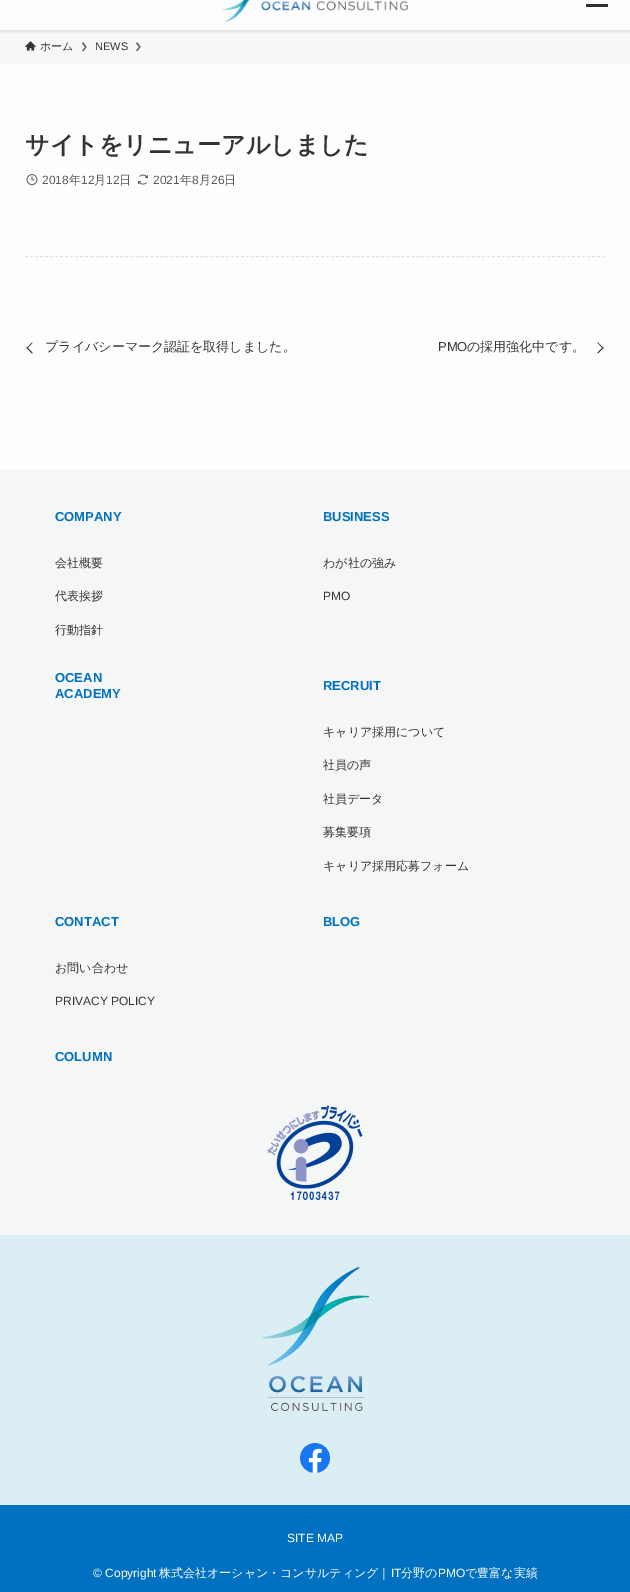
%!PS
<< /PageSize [630 1592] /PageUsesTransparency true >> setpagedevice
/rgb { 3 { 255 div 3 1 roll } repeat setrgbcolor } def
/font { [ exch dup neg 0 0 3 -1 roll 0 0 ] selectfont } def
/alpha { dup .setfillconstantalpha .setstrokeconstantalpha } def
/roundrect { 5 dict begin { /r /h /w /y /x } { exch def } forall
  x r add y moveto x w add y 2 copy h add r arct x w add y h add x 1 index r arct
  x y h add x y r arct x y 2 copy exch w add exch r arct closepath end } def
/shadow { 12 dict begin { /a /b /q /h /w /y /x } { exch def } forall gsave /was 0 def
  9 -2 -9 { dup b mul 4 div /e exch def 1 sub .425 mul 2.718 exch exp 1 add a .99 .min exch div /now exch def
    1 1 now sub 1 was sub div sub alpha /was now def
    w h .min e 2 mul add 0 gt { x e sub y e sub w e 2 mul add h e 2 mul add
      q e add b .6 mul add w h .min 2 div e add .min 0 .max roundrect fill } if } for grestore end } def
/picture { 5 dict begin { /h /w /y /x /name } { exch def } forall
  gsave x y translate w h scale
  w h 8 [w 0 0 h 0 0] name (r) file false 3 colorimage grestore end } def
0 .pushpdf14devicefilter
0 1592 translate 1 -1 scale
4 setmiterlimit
253 253 253 rgb
0 0 630 1592 rectfill
247 247 247 rgb
0 30 630 34 rectfill
gsave
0 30 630 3 rectclip
0 0 0 rgb
0 -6 630 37 0 2 0.12 shadow
grestore
(img/1.rgb) 222 0 186 22 picture
51 51 51 rgb
586 4 22 3 rectfill
(img/2.rgb) 25 41 11 10 picture
90 90 90 rgb
83.5 42.5 moveto 82 43 lineto 85 47 lineto 82 51 lineto 83.5 51 lineto 86.5 47 lineto closepath fill
137.5 42.5 moveto 136 43 lineto 139 47 lineto 136 51 lineto 137.5 51 lineto 140.5 47 lineto closepath fill
(img/3.rgb) 26 174 12 12 picture
(img/4.rgb) 138 174 10 11 picture
226 226 226 rgb
[3 2.02] 0 setdash
25 256.5 moveto 605 256.5 lineto stroke
51 51 51 rgb
27 347 moveto 32.5 352.5 lineto 32 353.5 lineto 26.5 348 lineto closepath fill
32 342.5 moveto 32.5 343 lineto 27 348.5 lineto 26.5 348 lineto closepath fill
597.5 343 moveto 598 342.5 lineto 603.5 348 lineto 603 348.5 lineto closepath fill
597.5 352.5 moveto 603 347 lineto 603.5 348 lineto 598 353.5 lineto closepath fill
245 247 246 rgb
0 469 630 766 rectfill
(img/5.rgb) 267 1105 96 95 picture
219 238 244 rgb
0 1235 630 270 rectfill
(img/6.rgb) 262 1267 107 144 picture
(img/7.rgb) 300 1443 30 30 picture
0 112 192 rgb
0 1505 630 87 rectfill
/WenQuanYiZenHei-Medium 11 font
51 51 51 rgb
40 50 moveto (ホーム) show
/LiberationSans-Regular 11 font
95 50 moveto (NEWS) show
/WenQuanYiZenHei-Bold 24 font
25 153 moveto (サイトをリニューアルしました) show
/LiberationSans-Regular 12 font
91 91 91 rgb
42 184 moveto (2018) show
/WenQuanYiZenHei-Medium 12 font
69 184 moveto (年) show
/LiberationSans-Regular 12 font
81 184 moveto (12) show
/WenQuanYiZenHei-Medium 12 font
94 184 moveto (月) show
/LiberationSans-Regular 12 font
106 184 moveto (12) show
/WenQuanYiZenHei-Medium 12 font
119 184 moveto (日) show
/LiberationSans-Regular 12 font
153 184 moveto (2021) show
/WenQuanYiZenHei-Medium 12 font
180 184 moveto (年) show
/LiberationSans-Regular 12 font
192 184 moveto (8) show
/WenQuanYiZenHei-Medium 12 font
199 184 moveto (月) show
/LiberationSans-Regular 12 font
211 184 moveto (26) show
/WenQuanYiZenHei-Medium 12 font
224 184 moveto (日) show
/WenQuanYiZenHei-Medium 13 font
51 51 51 rgb
45 351 moveto (プライバシーマーク認証を取得しました。) show
/LiberationSans-Regular 13 font
438 351 moveto (PMO) show
/WenQuanYiZenHei-Medium 13 font
467 351 moveto (の採用強化中です。) show
/LiberationSans-Bold 13 font
0 112 192 rgb
55 521 moveto (COMPANY) show
/WenQuanYiZenHei-Medium 12 font
51 51 51 rgb
[
  [(会社概要) 55 567]
  [(代表挨拶) 55 600]
  [(行動指針) 55 634]
] { aload pop moveto show } forall
/LiberationSans-Bold 13 font
0 112 192 rgb
323 521 moveto (BUSINESS) show
/WenQuanYiZenHei-Medium 12 font
51 51 51 rgb
323 567 moveto (わが社の強み) show
/LiberationSans-Regular 12 font
323 600 moveto (PMO) show
/LiberationSans-Bold 13 font
0 112 192 rgb
[
  [(OCEAN) 55 682]
  [(ACADEMY) 55 698]
  [(RECRUIT) 323 690]
] { aload pop moveto show } forall
/WenQuanYiZenHei-Medium 12 font
51 51 51 rgb
[
  [(キャリア採用について) 323 736]
  [(社員の声) 323 769]
  [(社員データ) 323 803]
  [(募集要項) 323 836]
  [(キャリア採用応募フォーム) 323 870]
] { aload pop moveto show } forall
/LiberationSans-Bold 13 font
0 112 192 rgb
55 926 moveto (CONTACT) show
/WenQuanYiZenHei-Medium 12 font
51 51 51 rgb
55 972 moveto (お問い合わせ) show
/LiberationSans-Regular 12 font
55 1005 moveto (PRIVACY POLICY) show
/LiberationSans-Bold 13 font
0 112 192 rgb
323 926 moveto (BLOG) show
55 1061 moveto (COLUMN) show
/LiberationSans-Regular 12 font
255 255 255 rgb
287 1542 moveto (SITE MAP) show
93 1577 moveto (© Copyright) show
/WenQuanYiZenHei-Medium 12 font
159 1577 moveto (株式会社オーシャン・コンサルティング｜) show
/LiberationSans-Regular 12 font
391 1577 moveto (IT) show
/WenQuanYiZenHei-Medium 12 font
401 1577 moveto (分野の) show
/LiberationSans-Regular 12 font
438 1577 moveto (PMO) show
/WenQuanYiZenHei-Medium 12 font
465 1577 moveto (で豊富な実績) show
.poppdf14devicefilter showpage
